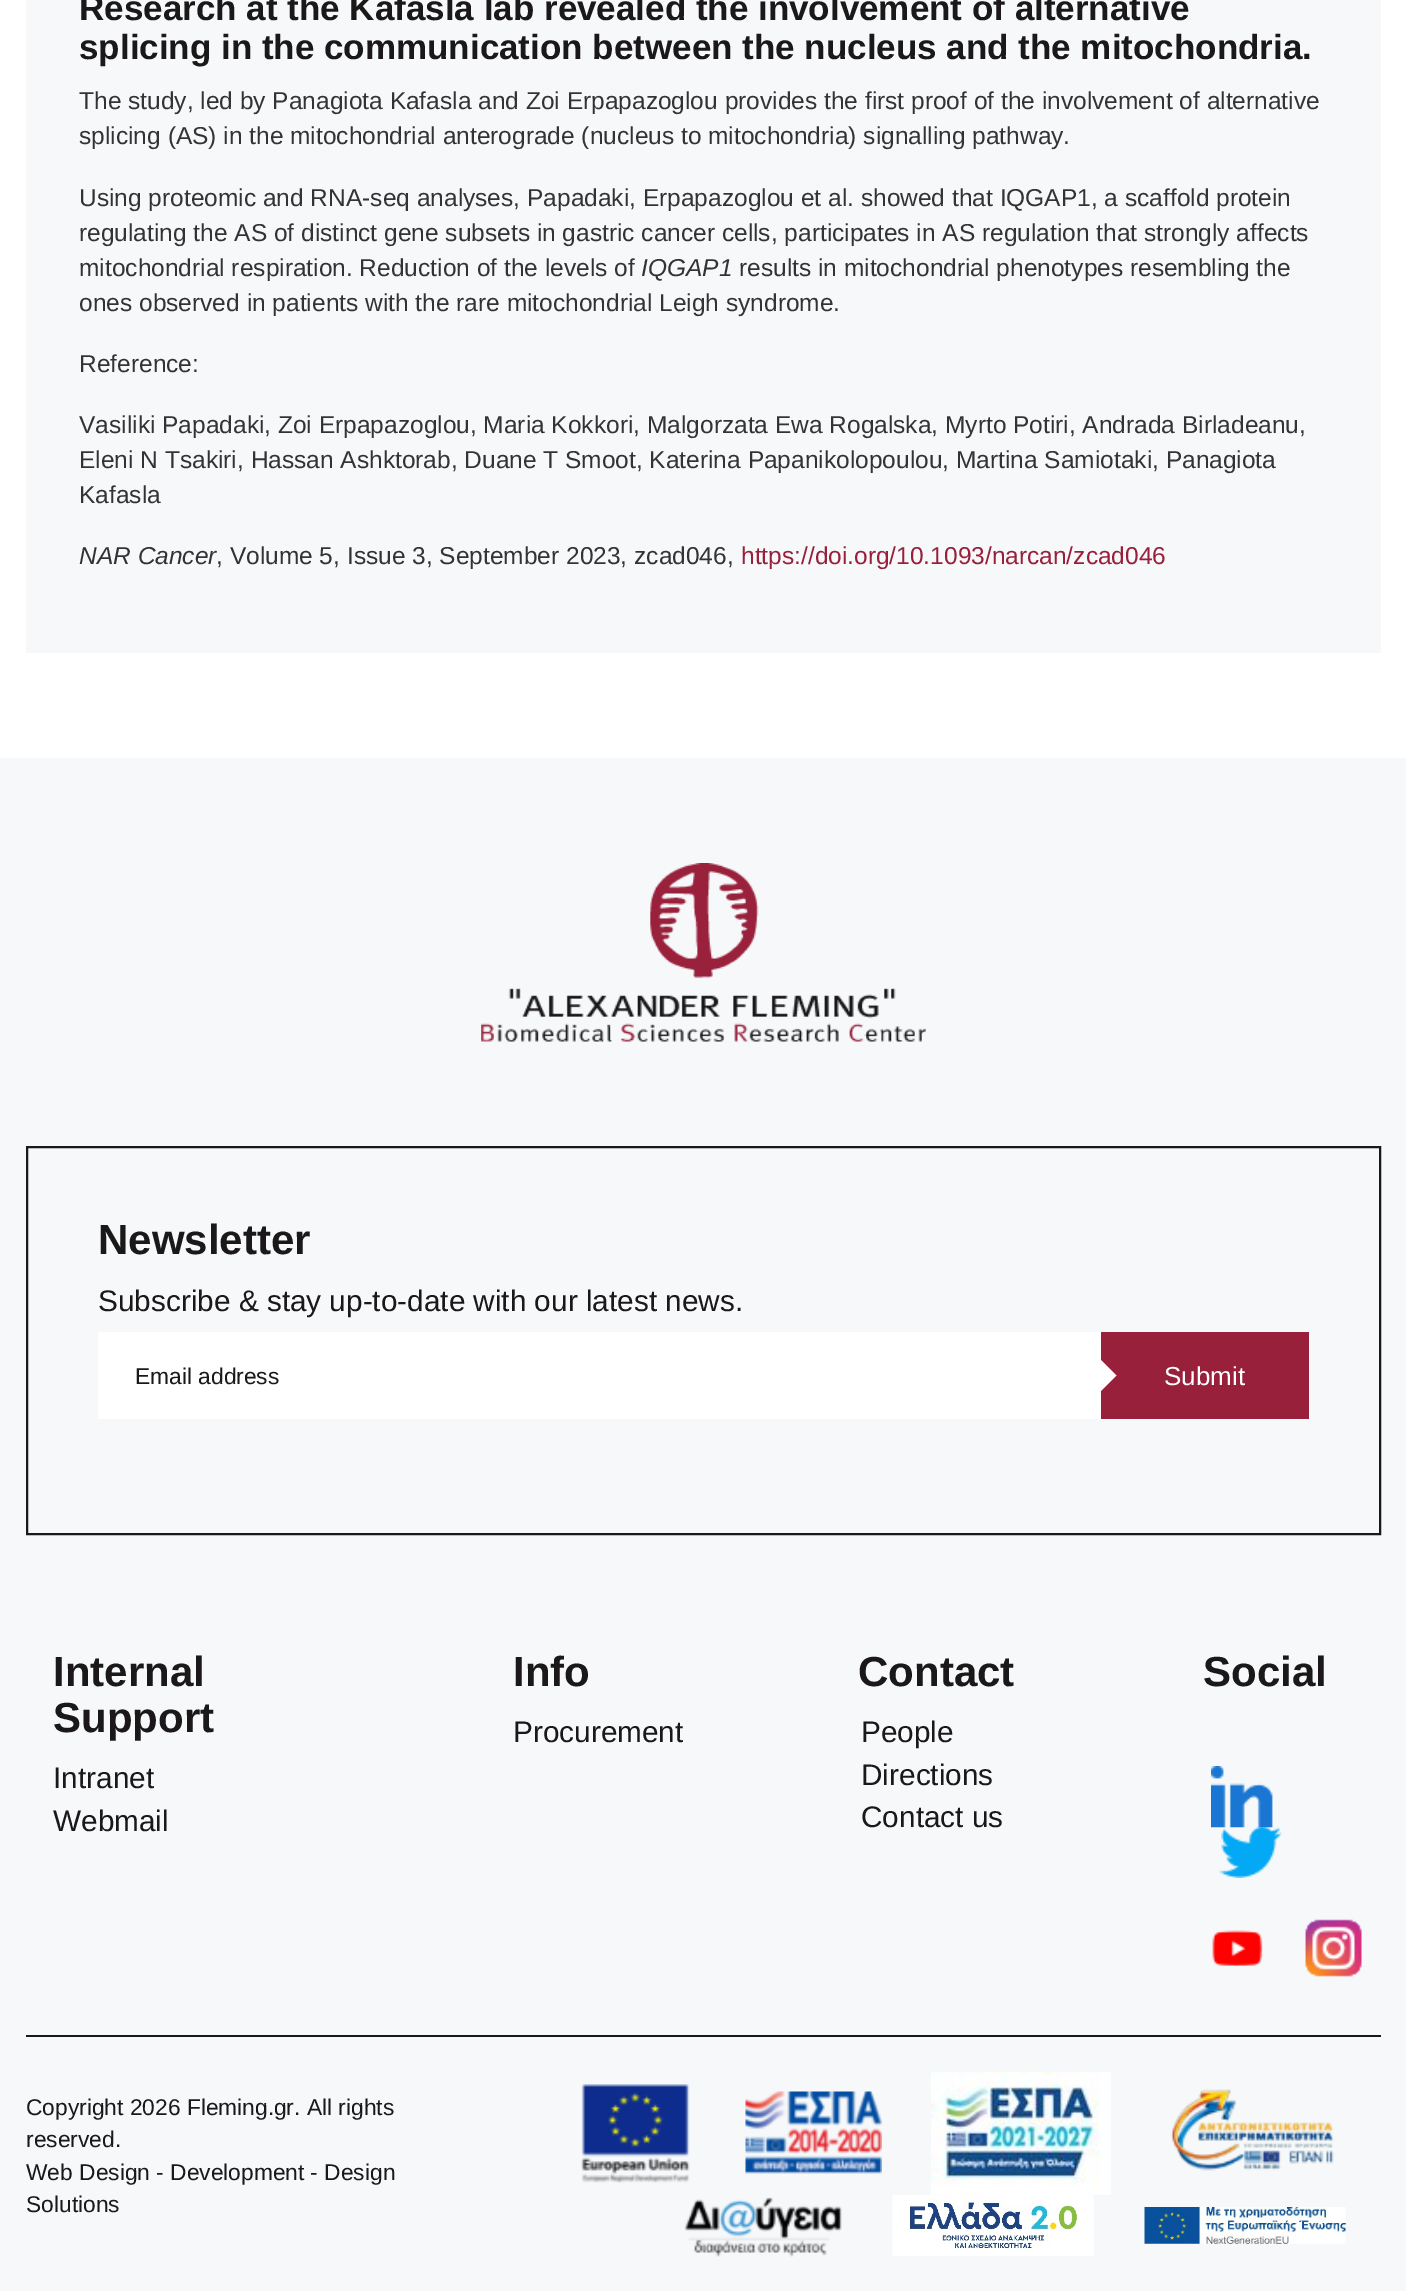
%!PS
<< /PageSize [1406 2291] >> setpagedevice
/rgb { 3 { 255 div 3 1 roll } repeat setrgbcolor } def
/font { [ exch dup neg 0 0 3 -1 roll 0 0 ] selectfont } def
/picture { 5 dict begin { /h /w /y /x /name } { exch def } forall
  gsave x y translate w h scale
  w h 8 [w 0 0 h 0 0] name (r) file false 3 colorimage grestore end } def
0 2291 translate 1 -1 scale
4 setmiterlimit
255 255 255 rgb
0 0 1406 2291 rectfill
246 248 250 rgb
26 0 1355 653 rectfill
0 758 1406 1533 rectfill
(img/1.rgb) 481 863 445 179 picture
26 24 24 rgb
2 setlinewidth
27 1147 1353 387 rectstroke
255 255 255 rgb
98 1332 1003 87 rectfill
152 32 59 rgb
1101 1332 208 87 rectfill
255 255 255 rgb
1099 1393 moveto 1099 1358 lineto 1116.5 1375.5 lineto closepath fill
(img/2.rgb) 1211 1766 62 62 picture
(img/3.rgb) 1219 1827 63 51 picture
(img/4.rgb) 1212 1930 51 36 picture
(img/5.rgb) 1305 1919 57 58 picture
26 24 24 rgb
26 2035 1355 2 rectfill
(img/6.rgb) 581 2084 109 99 picture
(img/7.rgb) 745 2091 137 83 picture
(img/8.rgb) 931 2072 180 123 picture
(img/9.rgb) 1170 2089 164 82 picture
(img/10.rgb) 684 2197 158 60 picture
(img/11.rgb) 892 2195 202 61 picture
(img/12.rgb) 1144 2207 202 37 picture
/LiberationSans-Bold 35 font
79 20 moveto (Research at the Kafasla lab revealed the involvement of alternative) show
79 59 moveto (splicing in the communication between the nucleus and the mitochondria.) show
/LiberationSans-Regular 24.5 font
51 51 51 rgb
[
  [(The study, led by Panagiota Kafasla and Zoi Erpapazoglou provides the first proof of the involvement of alternative) 79 109]
  [(splicing \(AS\) in the mitochondrial anterograde \(nucleus to mitochondria\) signalling pathway.) 79 144]
  [(Using proteomic and RNA-seq analyses, Papadaki, Erpapazoglou et al. showed that IQGAP1, a scaffold protein) 79 206]
  [(regulating the AS of distinct gene subsets in gastric cancer cells, participates in AS regulation that strongly affects) 79 241]
  [(mitochondrial respiration. Reduction of the levels of) 79 276]
] { aload pop moveto show } forall
/LiberationSans-Italic 24.5 font
641 276 moveto (IQGAP1) show
/LiberationSans-Regular 24.5 font
[
  [(results in mitochondrial phenotypes resembling the) 739 276]
  [(ones observed in patients with the rare mitochondrial Leigh syndrome.) 79 311]
  [(Reference:) 79 372]
  [(Vasiliki Papadaki, Zoi Erpapazoglou, Maria Kokkori, Malgorzata Ewa Rogalska, Myrto Potiri, Andrada Birladeanu,) 79 433]
  [(Eleni N Tsakiri, Hassan Ashktorab, Duane T Smoot, Katerina Papanikolopoulou, Martina Samiotaki, Panagiota) 79 468]
  [(Kafasla) 79 503]
] { aload pop moveto show } forall
/LiberationSans-Italic 24.5 font
79 564 moveto (NAR Cancer) show
/LiberationSans-Regular 24.5 font
216 564 moveto (, Volume 5, Issue 3, September 2023, zcad046,) show
152 32 59 rgb
741 564 moveto (https://doi.org/10.1093/narcan/zcad046) show
/LiberationSans-Bold 42 font
26 24 24 rgb
98 1254 moveto (Newsletter) show
/LiberationSans-Regular 29.75 font
98 1311 moveto (Subscribe & stay up-to-date with our latest news.) show
/LiberationSans-Regular 22.75 font
135 1384 moveto (Email address) show
/LiberationSans-Regular 26 font
255 255 255 rgb
1164 1385 moveto (Submit) show
/LiberationSans-Bold 42 font
26 24 24 rgb
53 1686 moveto (Internal) show
53 1732 moveto (Support) show
/LiberationSans-Regular 29.75 font
53 1788 moveto (Intranet) show
53 1831 moveto (Webmail) show
/LiberationSans-Bold 42 font
513 1686 moveto (Info) show
/LiberationSans-Regular 29.75 font
513 1742 moveto (Procurement) show
/LiberationSans-Bold 42 font
858 1686 moveto (Contact) show
/LiberationSans-Regular 29.75 font
[
  [(People) 861 1742]
  [(Directions) 861 1785]
  [(Contact us) 861 1827]
] { aload pop moveto show } forall
/LiberationSans-Bold 42 font
1203 1686 moveto (Social) show
/LiberationSans-Regular 22.75 font
[
  [(Copyright 2026 Fleming.gr. All rights) 26 2115]
  [(reserved.) 26 2147]
  [(Web Design - Development - Design) 26 2180]
  [(Solutions) 26 2212]
] { aload pop moveto show } forall
showpage
